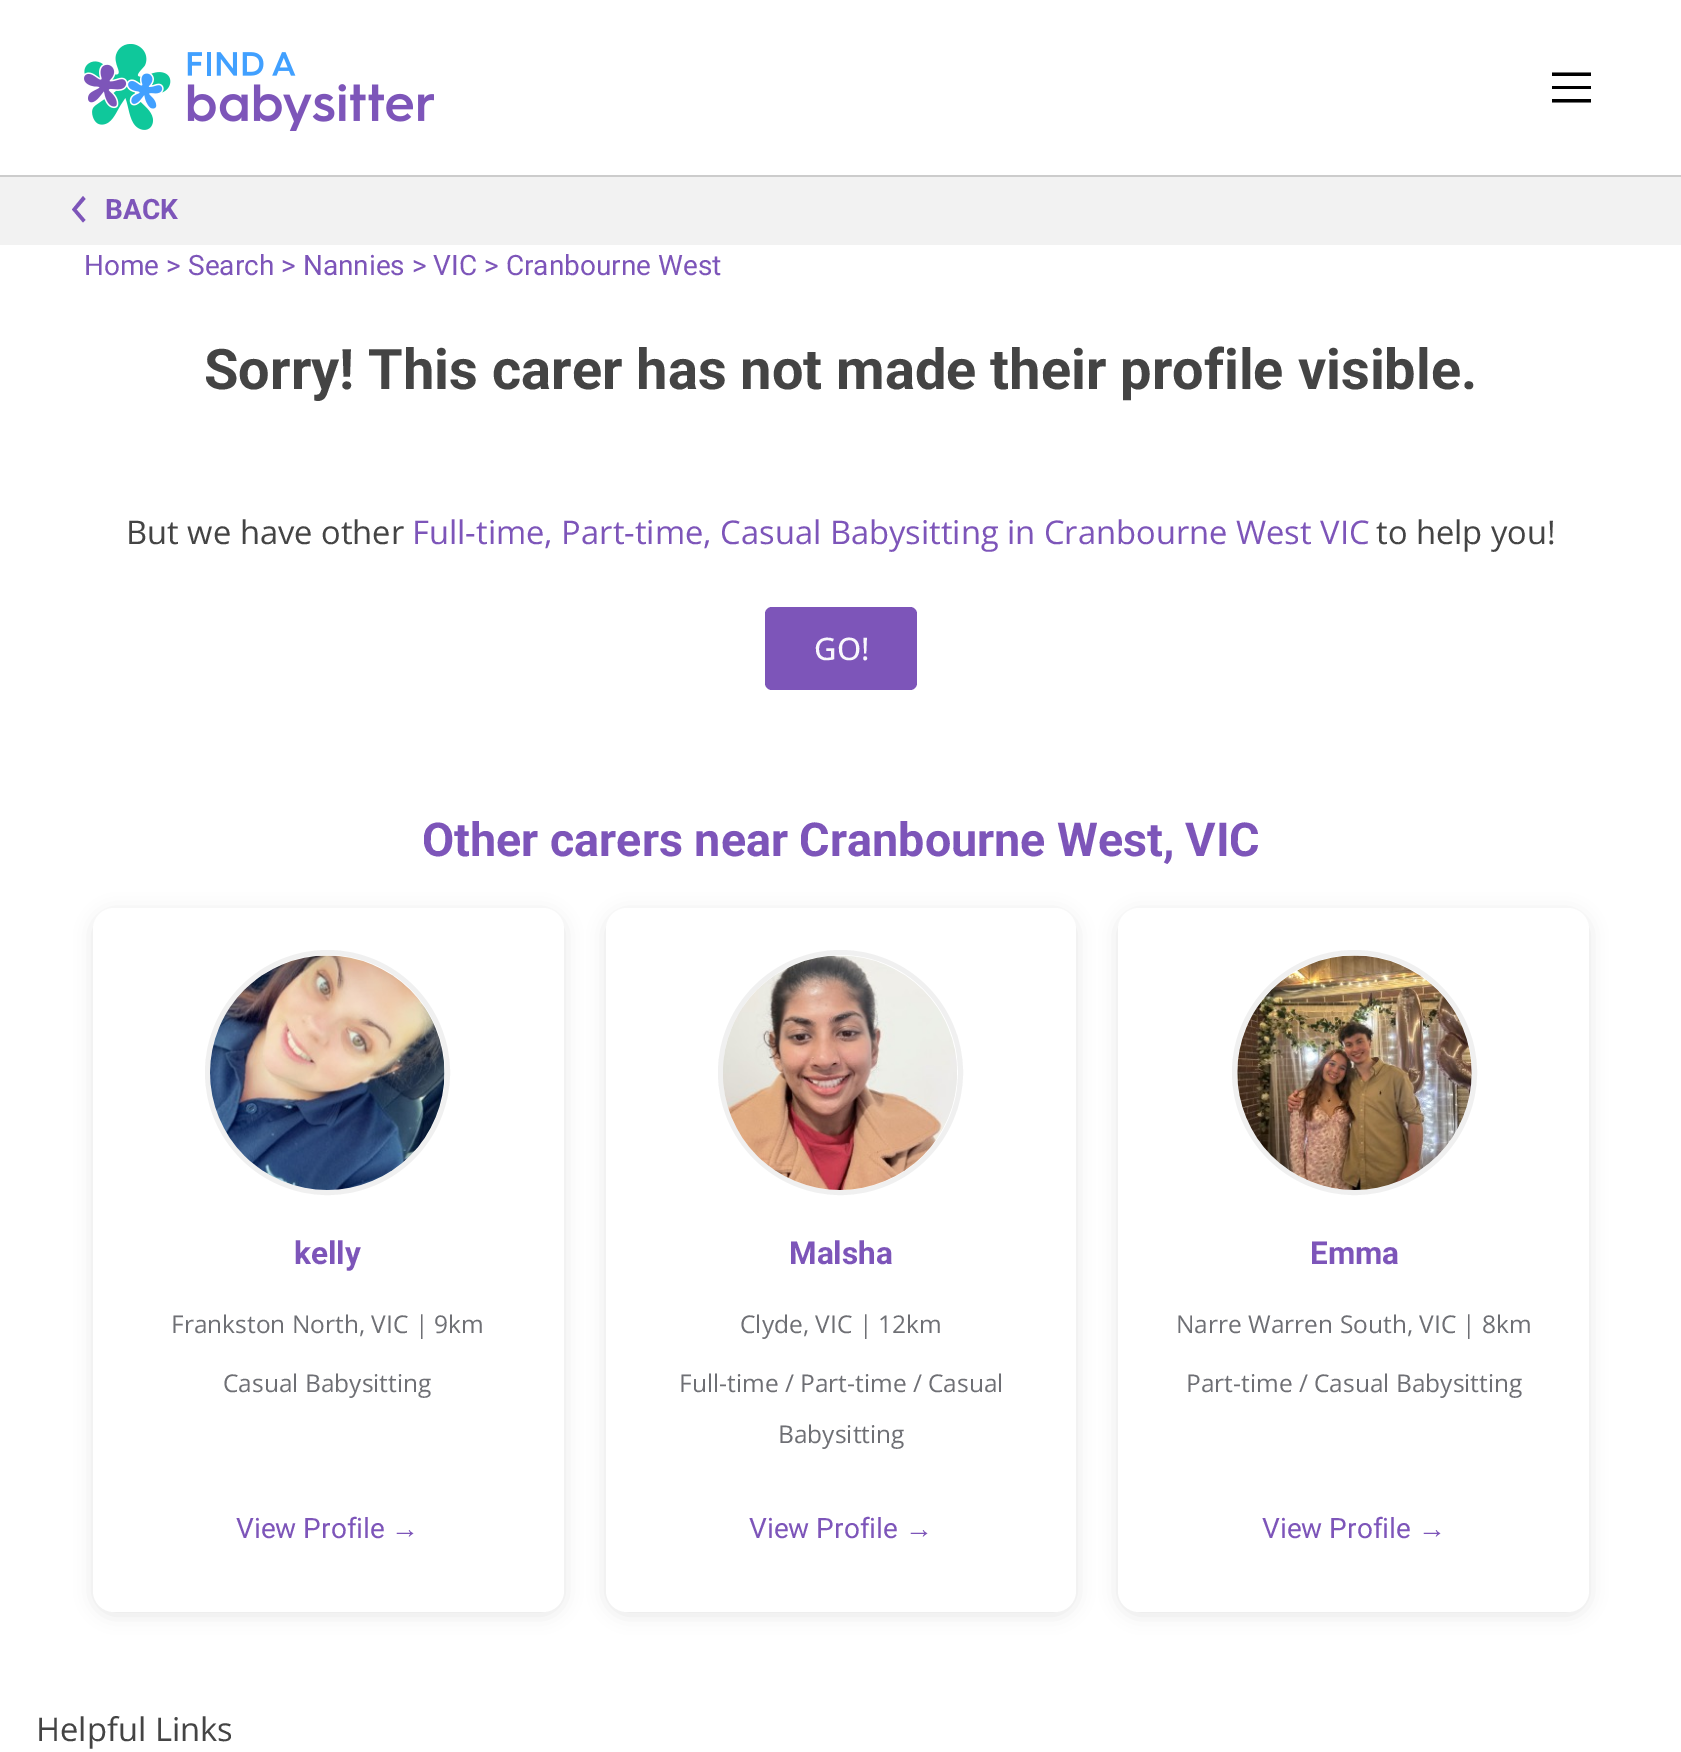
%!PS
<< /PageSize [1681 1752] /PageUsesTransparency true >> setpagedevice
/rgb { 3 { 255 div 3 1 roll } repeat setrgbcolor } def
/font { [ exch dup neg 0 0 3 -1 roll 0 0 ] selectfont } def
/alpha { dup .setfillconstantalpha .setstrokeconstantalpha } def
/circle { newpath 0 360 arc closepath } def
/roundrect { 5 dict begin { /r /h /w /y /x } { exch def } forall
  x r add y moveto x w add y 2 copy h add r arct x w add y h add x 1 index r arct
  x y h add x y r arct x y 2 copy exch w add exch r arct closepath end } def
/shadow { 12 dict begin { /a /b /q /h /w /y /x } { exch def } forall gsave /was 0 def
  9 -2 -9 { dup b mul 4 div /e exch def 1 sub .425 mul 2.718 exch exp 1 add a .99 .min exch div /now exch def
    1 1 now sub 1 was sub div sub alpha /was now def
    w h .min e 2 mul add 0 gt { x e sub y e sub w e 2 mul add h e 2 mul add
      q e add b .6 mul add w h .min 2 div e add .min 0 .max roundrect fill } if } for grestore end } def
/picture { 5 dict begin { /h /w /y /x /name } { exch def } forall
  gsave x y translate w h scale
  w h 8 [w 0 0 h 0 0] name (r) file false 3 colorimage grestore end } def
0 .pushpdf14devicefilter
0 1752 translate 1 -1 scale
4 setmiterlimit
255 255 255 rgb
0 0 1681 1752 rectfill
204 204 204 rgb
0 175 1681 2 rectfill
(img/1.rgb) 84 44 350 87 picture
0 0 0 rgb
1591 99 moveto 1591 102.5 lineto 1552 102.5 lineto 1552 99 lineto closepath 1591 86 moveto 1591 89 lineto 1552 89 lineto 1552 86 lineto closepath 1591 72.5 moveto 1591 76 lineto 1552 76 lineto 1552 72.5 lineto closepath fill
242 242 242 rgb
0 177 1681 68 rectfill
125 85 185 rgb
83 222.5 moveto 72 209.5 lineto 83 196 lineto 85.5 199 lineto 76.5 209.5 lineto 85.5 220 lineto closepath fill
765 607 152 83 7 roundrect fill
0 0 0 rgb
93 912 471 703 21 9 0.1 shadow
255 255 255 rgb
93 908 471 704 21 roundrect fill
240 240 240 rgb
5 setlinewidth
327.5 1072.5 120 circle stroke
(img/2.rgb) 210 955 235 235 picture
0 0 0 rgb
606 912 470 703 21 9 0.1 shadow
255 255 255 rgb
606 908 470 704 21 roundrect fill
240 240 240 rgb
840.5 1072.5 120 circle stroke
(img/3.rgb) 723 955 234 235 picture
0 0 0 rgb
1118 912 471 703 21 9 0.1 shadow
255 255 255 rgb
1118 908 471 704 21 roundrect fill
240 240 240 rgb
1354.5 1072.5 120 circle stroke
(img/4.rgb) 1237 955 235 235 picture
/Roboto-Bold 28 font
125 85 185 rgb
105 219 moveto (BACK) show
/Roboto-Regular 28 font
84 275 moveto (Home > Search > Nannies > VIC > Cranbourne West) show
/Roboto-Bold 56 font
68 68 68 rgb
204 389 moveto (Sorry! This carer has not made their profile visible.) show
/OpenSans-Regular 32.7 font
126 544 moveto (But we have other) show
125 85 185 rgb
412 544 moveto (Full-time, Part-time, Casual Babysitting in Cranbourne West VIC) show
68 68 68 rgb
1376 544 moveto (to help you!) show
/OpenSans-Medium 31 font
249 247 252 rgb
814 660 moveto (GO!) show
/Roboto-Bold 46.7 font
125 85 185 rgb
422 856 moveto (Other carers near Cranbourne West,) show
1185 856 moveto (VIC) show
/Roboto-Bold 31.5 font
294 1264 moveto (kelly) show
/OpenSans-Regular 24.5 font
110 111 116 rgb
171 1333 moveto (Frankston North, VIC | 9km) show
223 1392 moveto (Casual Babysitting) show
/Roboto-Regular 28 font
125 85 185 rgb
236 1538 moveto (View Profile) show
/LiberationSans-Regular 28 font
391 1538 moveto (→) show
/Roboto-Bold 31.5 font
789 1264 moveto (Malsha) show
/OpenSans-Regular 24.5 font
110 111 116 rgb
[
  [(Clyde, VIC | 12km) 740 1333]
  [(Full-time / Part-time / Casual) 679 1392]
  [(Babysitting) 778 1443]
] { aload pop moveto show } forall
/Roboto-Regular 28 font
125 85 185 rgb
749 1538 moveto (View Profile) show
/LiberationSans-Regular 28 font
905 1538 moveto (→) show
/Roboto-Bold 31.5 font
1310 1264 moveto (Emma) show
/OpenSans-Regular 24.5 font
110 111 116 rgb
1176 1333 moveto (Narre Warren South, VIC | 8km) show
1186 1392 moveto (Part-time / Casual Babysitting) show
/Roboto-Regular 28 font
125 85 185 rgb
1262 1538 moveto (View Profile) show
/LiberationSans-Regular 28 font
1418 1538 moveto (→) show
/OpenSans-Regular 32.7 font
68 68 68 rgb
36 1741 moveto (Helpful Links) show
.poppdf14devicefilter showpage
